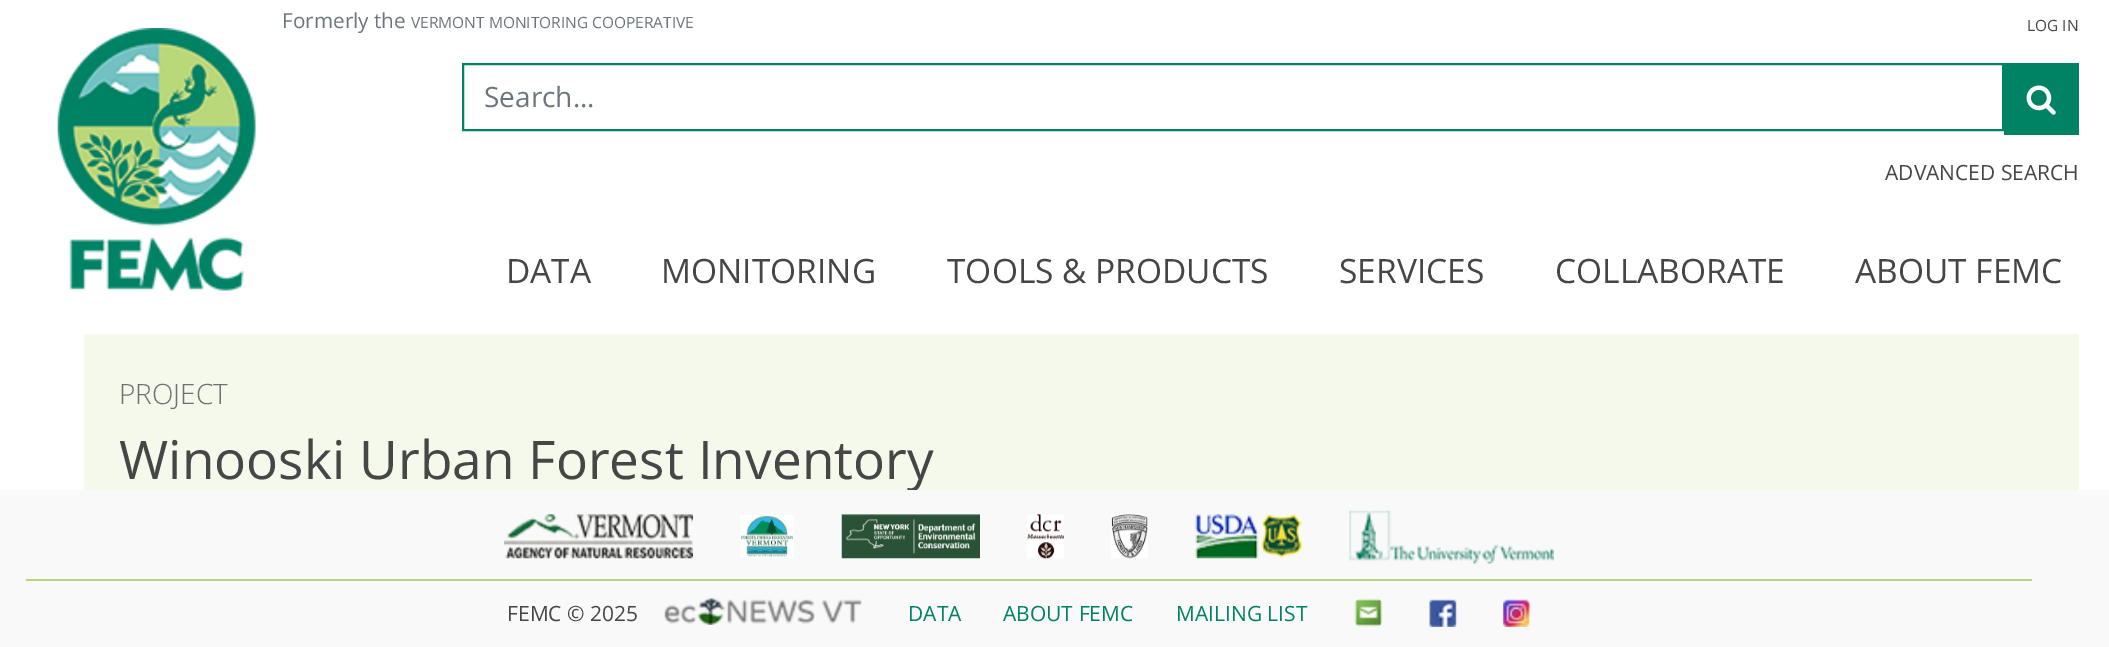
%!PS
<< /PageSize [2109 647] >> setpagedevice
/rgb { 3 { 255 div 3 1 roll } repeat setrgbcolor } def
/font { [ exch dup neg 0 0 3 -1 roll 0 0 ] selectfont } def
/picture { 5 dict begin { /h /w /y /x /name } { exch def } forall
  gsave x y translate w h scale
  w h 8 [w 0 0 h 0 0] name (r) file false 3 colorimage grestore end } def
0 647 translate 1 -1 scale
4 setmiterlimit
255 255 255 rgb
0 0 2109 647 rectfill
(img/1.rgb) 57 28 199 263 picture
0 130 101 rgb
2 setlinewidth
463 64 1540 66 rectstroke
2004 63 75 72 rectfill
(img/2.rgb) 2026 85 30 30 picture
244 249 235 rgb
84 334 1995 156 rectfill
/OpenSans-Regular 20.75 font
108 117 125 rgb
282 28 moveto (Formerly the) show
/OpenSans-Regular 15.5 font
411 28 moveto (VERMONT MONITORING COOPERATIVE) show
70 70 70 rgb
2027 31 moveto (LOG IN) show
/OpenSans-Regular 28 font
108 117 125 rgb
484 107 moveto (Search...) show
/OpenSans-Regular 21 font
70 70 70 rgb
1885 180 moveto (ADVANCED SEARCH) show
/OpenSans-Regular 33.5 font
[
  [(DATA) 506 283]
  [(MONITORING) 661 283]
  [(TOOLS & PRODUCTS) 947 283]
  [(SERVICES) 1339 283]
  [(COLLABORATE) 1555 283]
  [(ABOUT FEMC) 1855 283]
] { aload pop moveto show } forall
/OpenSans-Light 28 font
112 112 112 rgb
119 404 moveto (PROJECT) show
/OpenSans-Regular 53.25 font
70 70 70 rgb
119 479 moveto (Winooski Urban Forest Inventory) show
249 249 249 rgb
0 490 2109 157 rectfill
(img/3.rgb) 504 514 189 45 picture
(img/4.rgb) 740 515 54 43 picture
(img/5.rgb) 841 514 139 45 picture
(img/6.rgb) 1027 514 37 45 picture
(img/7.rgb) 1111 514 37 45 picture
(img/8.rgb) 1195 514 107 45 picture
(img/9.rgb) 1349 510 205 54 picture
184 216 122 rgb
26 579 2006 2 rectfill
/OpenSans-Regular 21 font
70 70 70 rgb
507 621 moveto (FEMC © 2025) show
(img/10.rgb) 664 597 198 28 picture
0 130 101 rgb
[
  [(DATA) 908 621]
  [(ABOUT FEMC) 1003 621]
  [(MAILING LIST) 1176 621]
] { aload pop moveto show } forall
(img/11.rgb) 1354 598 29 29 picture
(img/12.rgb) 1429 599 28 28 picture
(img/13.rgb) 1503 599 28 28 picture
showpage
